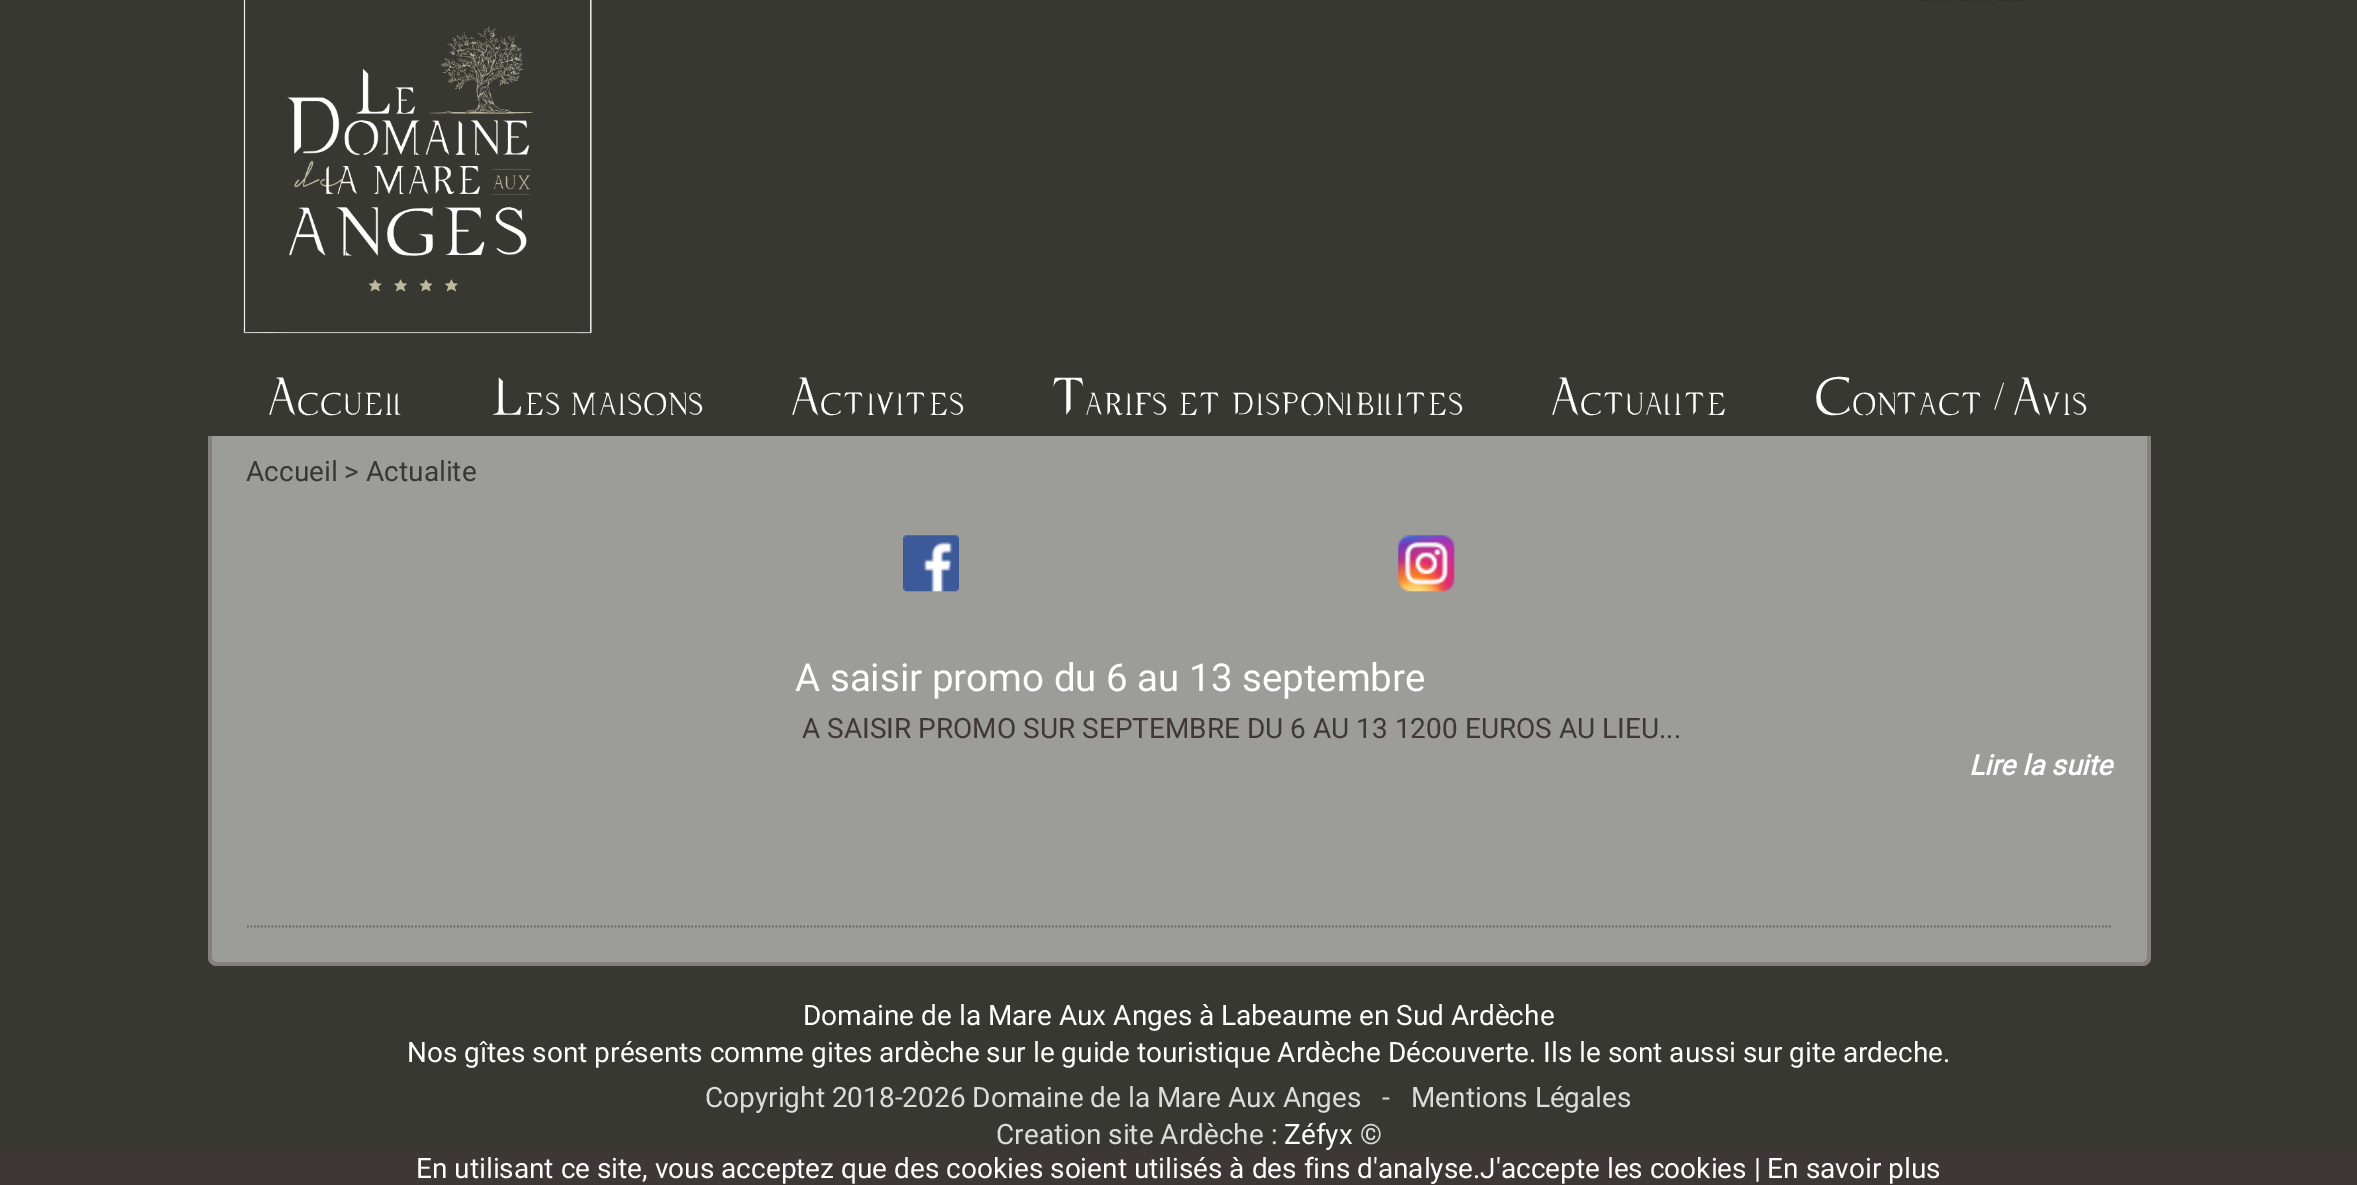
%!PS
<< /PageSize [2357 1185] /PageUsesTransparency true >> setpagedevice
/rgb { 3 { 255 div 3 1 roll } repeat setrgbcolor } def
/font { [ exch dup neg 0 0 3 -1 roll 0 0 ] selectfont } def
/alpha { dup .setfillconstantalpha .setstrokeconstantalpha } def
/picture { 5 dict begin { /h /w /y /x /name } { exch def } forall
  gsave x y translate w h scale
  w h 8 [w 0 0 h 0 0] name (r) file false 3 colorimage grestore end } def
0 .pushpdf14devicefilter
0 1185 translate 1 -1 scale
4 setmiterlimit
56 56 51 rgb
0 0 2357 1185 rectfill
(img/1.rgb) 243 0 349 334 picture
(img/2.rgb) 1920 0 30 1 picture
(img/3.rgb) 1959 0 30 1 picture
(img/4.rgb) 1997 0 30 1 picture
156 156 153 rgb
208 436 moveto 2151 436 lineto 2151 957 lineto 2151 962 2147 966 2142 966 curveto 217 966 lineto 212 966 208 962 208 957 curveto closepath fill
0.51 alpha
113 99 99 rgb
208 436 moveto 2151 436 lineto 2151 957 lineto 2151 962 2147 966 2142 966 curveto 217 966 lineto 212 966 208 962 208 957 curveto closepath 212 436 moveto 2147 436 lineto 2147 957 lineto 2147 960 2145 962 2142 962 curveto 217 962 lineto 214 962 212 960 212 957 curveto closepath eofill
1 alpha
(img/5.rgb) 903 535 56 57 picture
(img/6.rgb) 1398 535 57 57 picture
103 103 103 rgb
1.8 setlinewidth
[1.75 1.75] 0 setdash
247 926.5 moveto 2112 926.5 lineto stroke
61 55 53 rgb
0 1150 2357 35 rectfill
/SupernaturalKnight-Regular 35 font
255 255 255 rgb
[
  [(Accueil) 269 408]
  [(Les maisons) 492 408]
  [(Activites) 792 408]
  [(Tarifs et disponibilites) 1053 408]
  [(Actualite) 1552 408]
  [(Contact / Avis) 1816 408]
] { aload pop moveto show } forall
/Roboto-Regular 28 font
56 56 51 rgb
246 481 moveto (Accueil) show
65 55 55 rgb
344 481 moveto (>) show
56 56 51 rgb
366 481 moveto (Actualite) show
/Roboto-Regular 38.5 font
255 255 255 rgb
795 691 moveto (A saisir promo du 6 au 13 septembre) show
/Roboto-Regular 28 font
65 55 55 rgb
802 738 moveto (A SAISIR PROMO SUR SEPTEMBRE DU 6 AU 13 1200 EUROS AU LIEU...) show
/Roboto-BoldItalic 28 font
255 255 255 rgb
1969 775 moveto (Lire la suite) show
/Roboto-Regular 28 font
803 1025 moveto (Domaine de la Mare Aux Anges à Labeaume en Sud Ardèche) show
407 1062 moveto (Nos gîtes sont présents comme gites ardèche sur le guide touristique Ardèche Découverte. Ils le sont aussi sur gite ardeche.) show
220 220 220 rgb
[
  [(Copyright 2018-2026 Domaine de la Mare Aux Anges   -) 705 1107]
  [(Mentions Légales) 1411 1107]
  [(Creation site Ardèche :) 996 1144]
] { aload pop moveto show } forall
255 255 255 rgb
1284 1144 moveto (Zéfyx) show
220 220 220 rgb
1360 1144 moveto (©) show
255 255 255 rgb
416 1178 moveto (En utilisant ce site, vous acceptez que des cookies soient utilisés à des fins d'analyse.J'accepte les cookies | En savoir plus) show
.poppdf14devicefilter showpage
